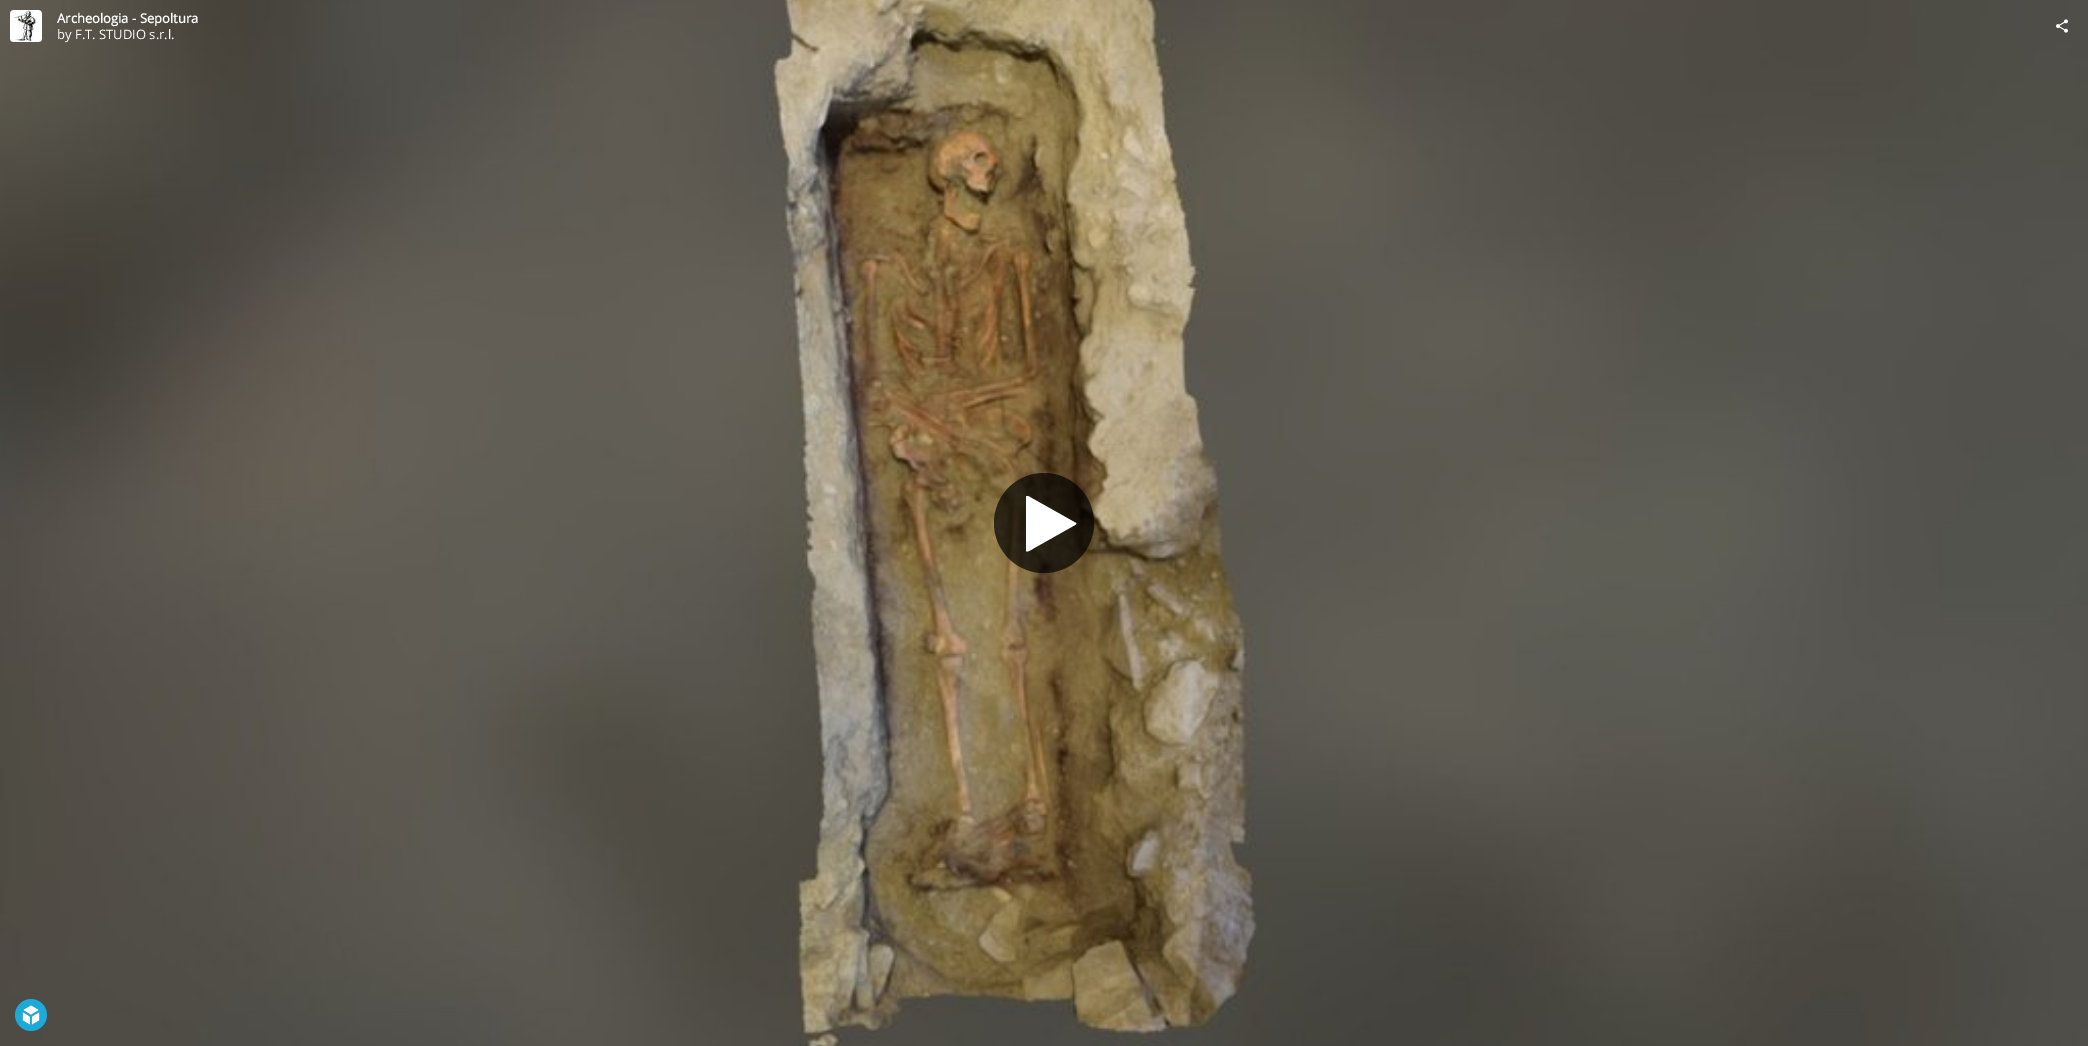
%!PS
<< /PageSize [2088 1046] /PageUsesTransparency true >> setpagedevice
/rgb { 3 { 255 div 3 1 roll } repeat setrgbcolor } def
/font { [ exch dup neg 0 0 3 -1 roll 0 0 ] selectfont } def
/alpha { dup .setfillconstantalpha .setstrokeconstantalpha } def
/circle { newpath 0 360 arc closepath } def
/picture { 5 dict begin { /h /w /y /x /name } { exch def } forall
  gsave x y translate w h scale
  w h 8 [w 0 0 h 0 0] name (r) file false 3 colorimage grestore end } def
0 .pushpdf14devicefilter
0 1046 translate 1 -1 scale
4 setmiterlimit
255 255 255 rgb
0 0 2088 1046 rectfill
(img/1.rgb) 0 0 2088 1046 picture
0.7 alpha
0 0 0 rgb
1044 523 50 circle fill
1 alpha
255 255 255 rgb
1075 525 moveto 1036 547 lineto 1035 547 1028 553 1026 551 curveto 1026 497 lineto 1026 496 1027 496 1028 496 curveto 1076 523 lineto 1077 524 1076 524 1075 525 curveto closepath fill
(img/2.rgb) 15 999 32 32 picture
(img/3.rgb) 10 10 32 32 picture
(img/4.rgb) 2056 19 12 14 picture
/OpenSans-Bold 13 font
57 23 moveto (Archeologia - Sepoltura) show
/OpenSans-Regular 13 font
57 39 moveto (by F.T. STUDIO s.r.l.) show
.poppdf14devicefilter showpage
